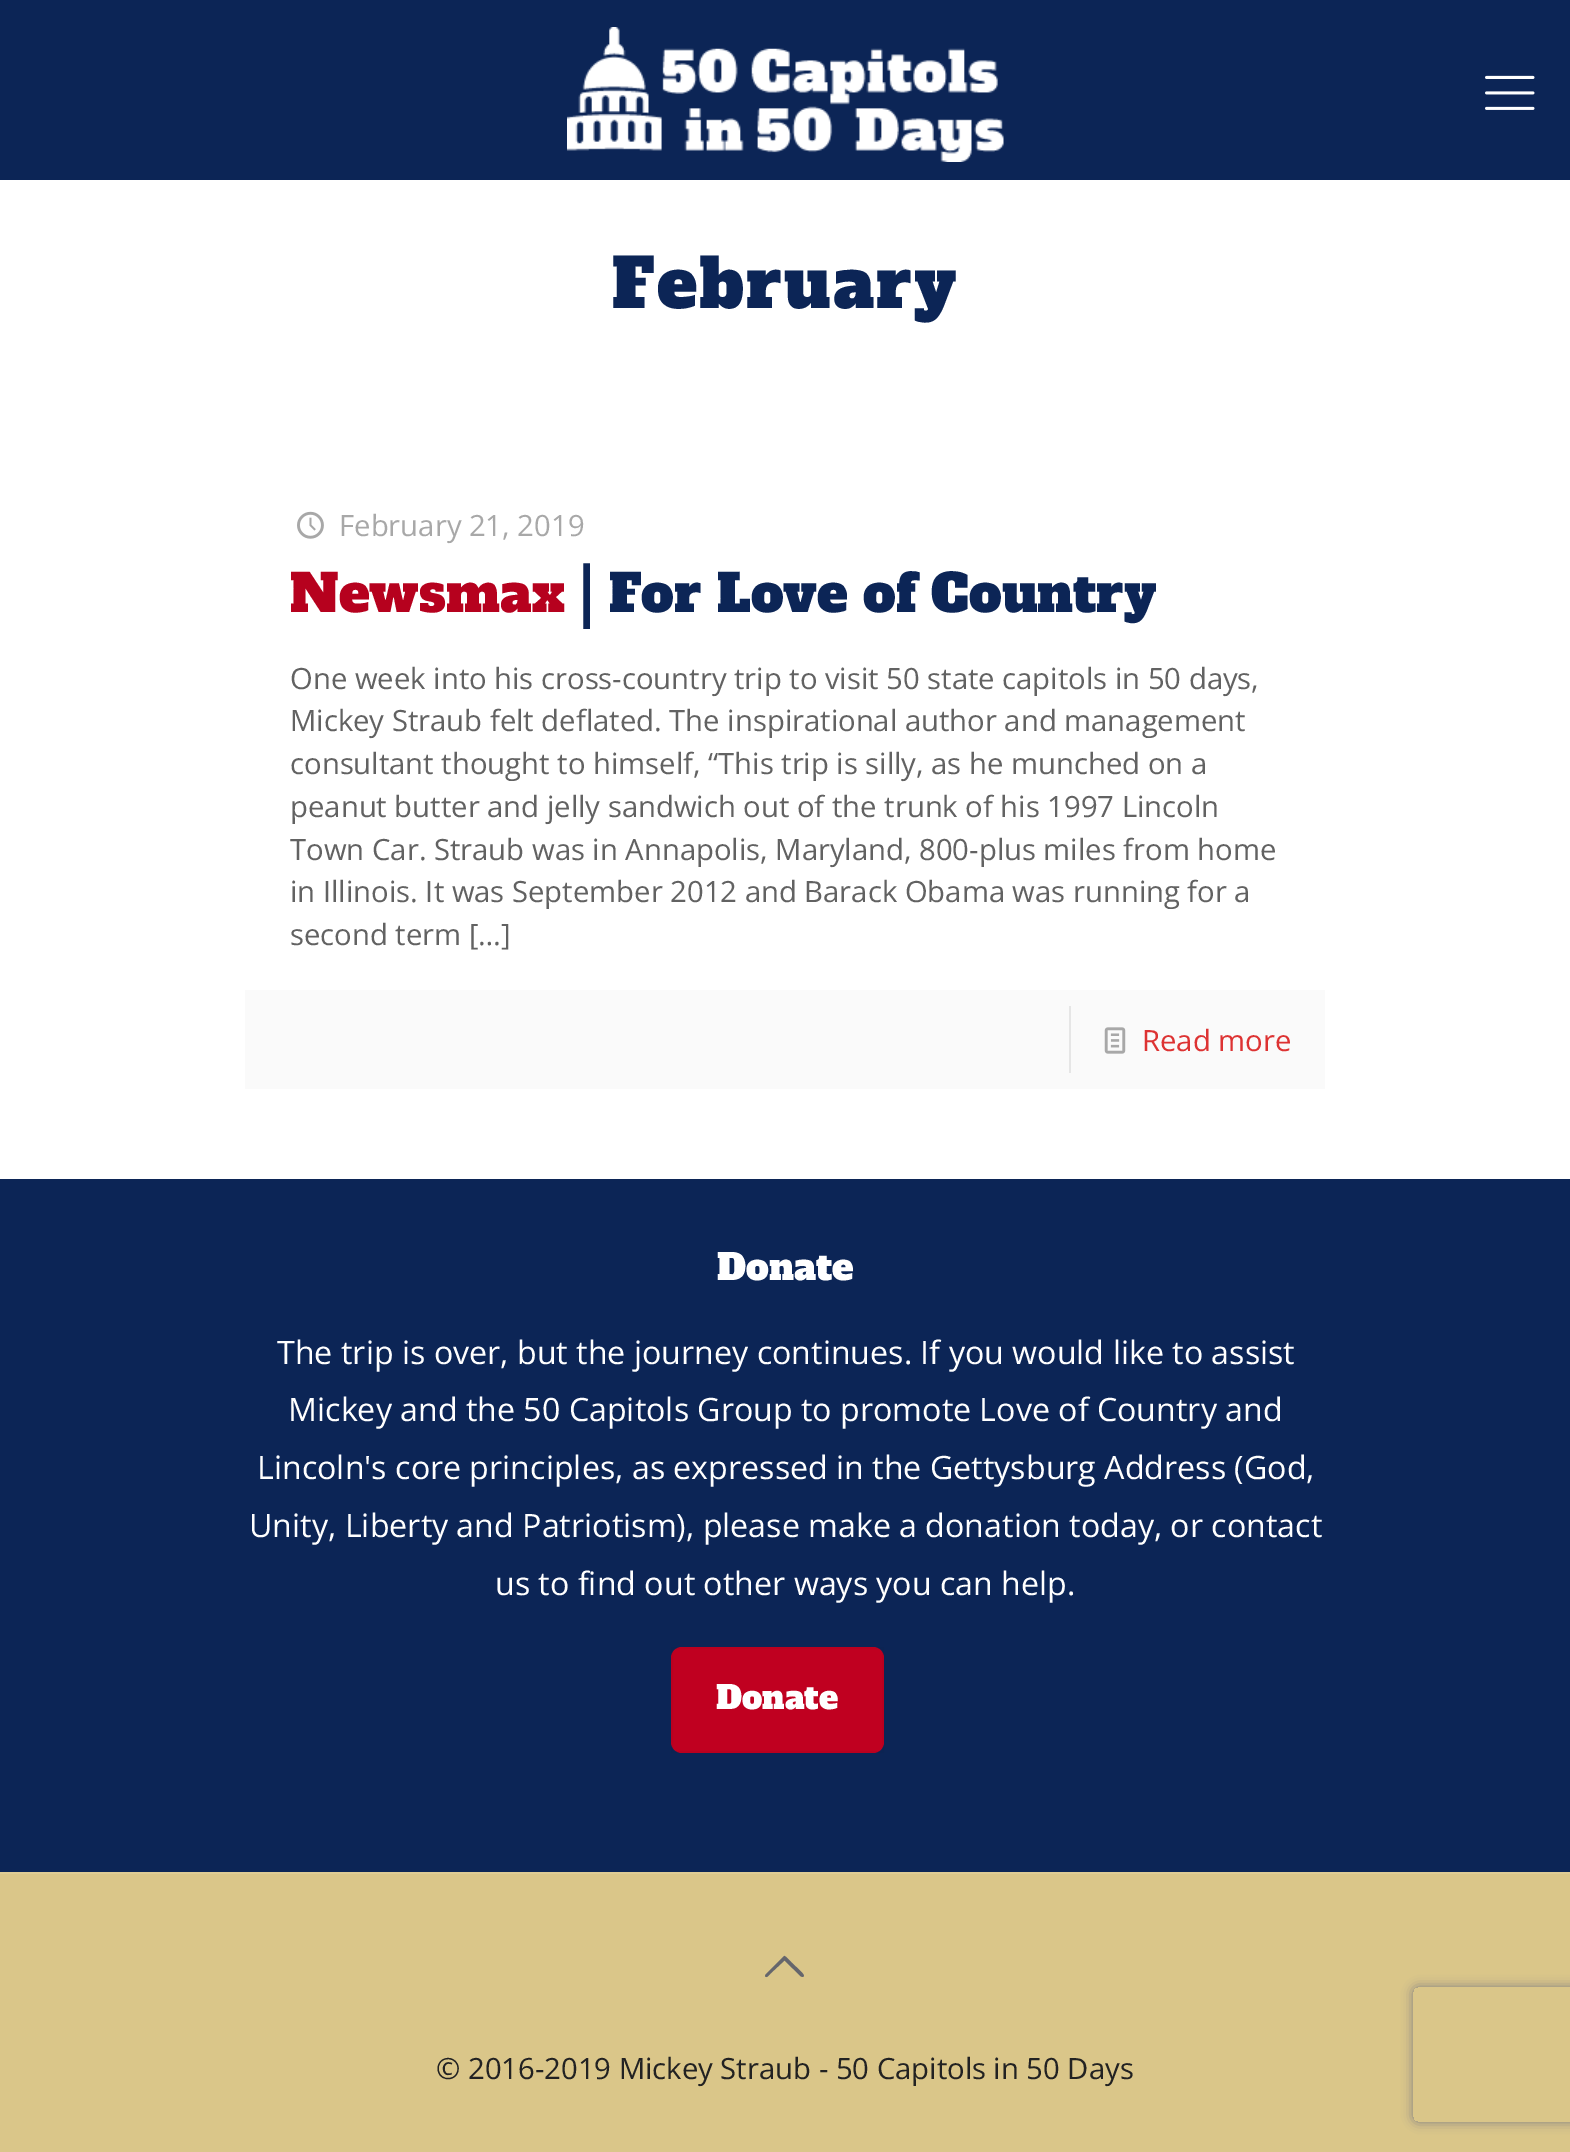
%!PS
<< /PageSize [1570 2152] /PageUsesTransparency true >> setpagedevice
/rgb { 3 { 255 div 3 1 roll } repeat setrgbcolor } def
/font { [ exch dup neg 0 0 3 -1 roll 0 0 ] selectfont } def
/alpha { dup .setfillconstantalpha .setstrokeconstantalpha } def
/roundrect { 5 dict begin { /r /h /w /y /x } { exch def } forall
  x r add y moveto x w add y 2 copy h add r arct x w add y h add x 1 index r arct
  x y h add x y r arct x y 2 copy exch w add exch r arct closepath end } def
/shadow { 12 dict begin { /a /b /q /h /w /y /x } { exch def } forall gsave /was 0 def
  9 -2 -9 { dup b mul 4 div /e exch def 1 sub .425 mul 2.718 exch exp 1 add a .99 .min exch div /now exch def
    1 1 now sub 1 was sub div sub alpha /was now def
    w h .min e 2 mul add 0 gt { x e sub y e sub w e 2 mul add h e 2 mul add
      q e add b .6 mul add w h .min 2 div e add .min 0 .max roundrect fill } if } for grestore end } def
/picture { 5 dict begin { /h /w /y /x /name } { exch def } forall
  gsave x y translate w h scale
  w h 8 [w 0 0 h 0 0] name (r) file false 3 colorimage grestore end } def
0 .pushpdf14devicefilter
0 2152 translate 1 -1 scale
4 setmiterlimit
255 255 255 rgb
0 0 1570 2152 rectfill
12 37 86 rgb
0 0 1570 180 rectfill
(img/1.rgb) 567 27 437 135 picture
(img/2.rgb) 1485 75 50 35 picture
(img/3.rgb) 297 511 27 28 picture
250 250 250 rgb
245 990 1080 99 rectfill
230 230 230 rgb
1069 1006 2 67 rectfill
(img/4.rgb) 1104 1027 22 27 picture
218 198 137 rgb
0 1874 1570 278 rectfill
12 37 86 rgb
0 1179 1570 693 rectfill
192 0 32 rgb
671 1647 213 106 11 roundrect fill
0.03 alpha
0 0 0 rgb
2 setlinewidth
672 1648 211 104 rectstroke
1 alpha
222 204 149 rgb
0 1872 1570 2 rectfill
101 102 108 rgb
801 1976.5 moveto 784.5 1960.5 lineto 770.5 1973.5 lineto 769.5 1974.5 766.5 1979 765 1976 curveto 765.5 1974.5 lineto 784 1956 lineto 785.5 1955.5 790.5 1961.5 791.5 1962.5 curveto 800.5 1971 lineto 800.5 1971.5 806.5 1976 802.5 1977 curveto closepath fill
gsave
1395 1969 moveto 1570 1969 lineto 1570 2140 lineto 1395 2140 lineto closepath 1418 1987 moveto 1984 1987 lineto 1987 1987 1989 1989 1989 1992 curveto 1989 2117 lineto 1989 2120 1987 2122 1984 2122 curveto 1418 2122 lineto 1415 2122 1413 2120 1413 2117 curveto 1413 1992 lineto 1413 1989 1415 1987 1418 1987 curveto closepath eoclip newpath
128 128 128 rgb
1413 1987 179 135 5 5.5 1 shadow
grestore
/AlfaSlabOne-Regular 67.5 font
12 37 86 rgb
612 308 moveto 2.25 0 (February) ashow
/OpenSans-Regular 29.25 font
168 168 168 rgb
339 536 moveto (February 21, 2019) show
/AlfaSlabOne-Regular 51.75 font
182 1 30 rgb
290 612 moveto (Newsmax) show
12 37 86 rgb
580 612 moveto (| For Love of Country) show
/OpenSans-Regular 29.25 font
98 98 98 rgb
[
  [(One week into his cross-country trip to visit 50 state capitols in 50 days,) 290 689]
  [(Mickey Straub felt deflated. The inspirational author and management) 290 731]
  [(consultant thought to himself, “This trip is silly, as he munched on a) 290 774]
  [(peanut butter and jelly sandwich out of the trunk of his 1997 Lincoln) 290 817]
  [(Town Car. Straub was in Annapolis, Maryland, 800-plus miles from home) 290 860]
  [(in Illinois. It was September 2012 and Barack Obama was running for a) 290 902]
  [(second term […]) 290 945]
] { aload pop moveto show } forall
221 51 51 rgb
1142 1051 moveto (Read more) show
/AlfaSlabOne-Regular 36 font
255 255 255 rgb
717 1280 moveto (Donate) show
/OpenSans-Regular 32.2 font
[
  [(The trip is over, but the journey continues. If you would like to assist) 277 1364]
  [(Mickey and the 50 Capitols Group to promote Love of Country and) 288 1421]
  [(Lincoln's core principles, as expressed in the Gettysburg Address \(God,) 257 1479]
  [(Unity, Liberty and Patriotism\), please make a donation today, or contact) 249 1537]
  [(us to find out other ways you can help.) 495 1595]
] { aload pop moveto show } forall
/AlfaSlabOne-Regular 32.2 font
716 1709 moveto (Donate) show
/OpenSans-Regular 29.25 font
34 34 34 rgb
436 2079 moveto (© 2016-2019 Mickey Straub - 50 Capitols in 50 Days) show
.poppdf14devicefilter showpage
